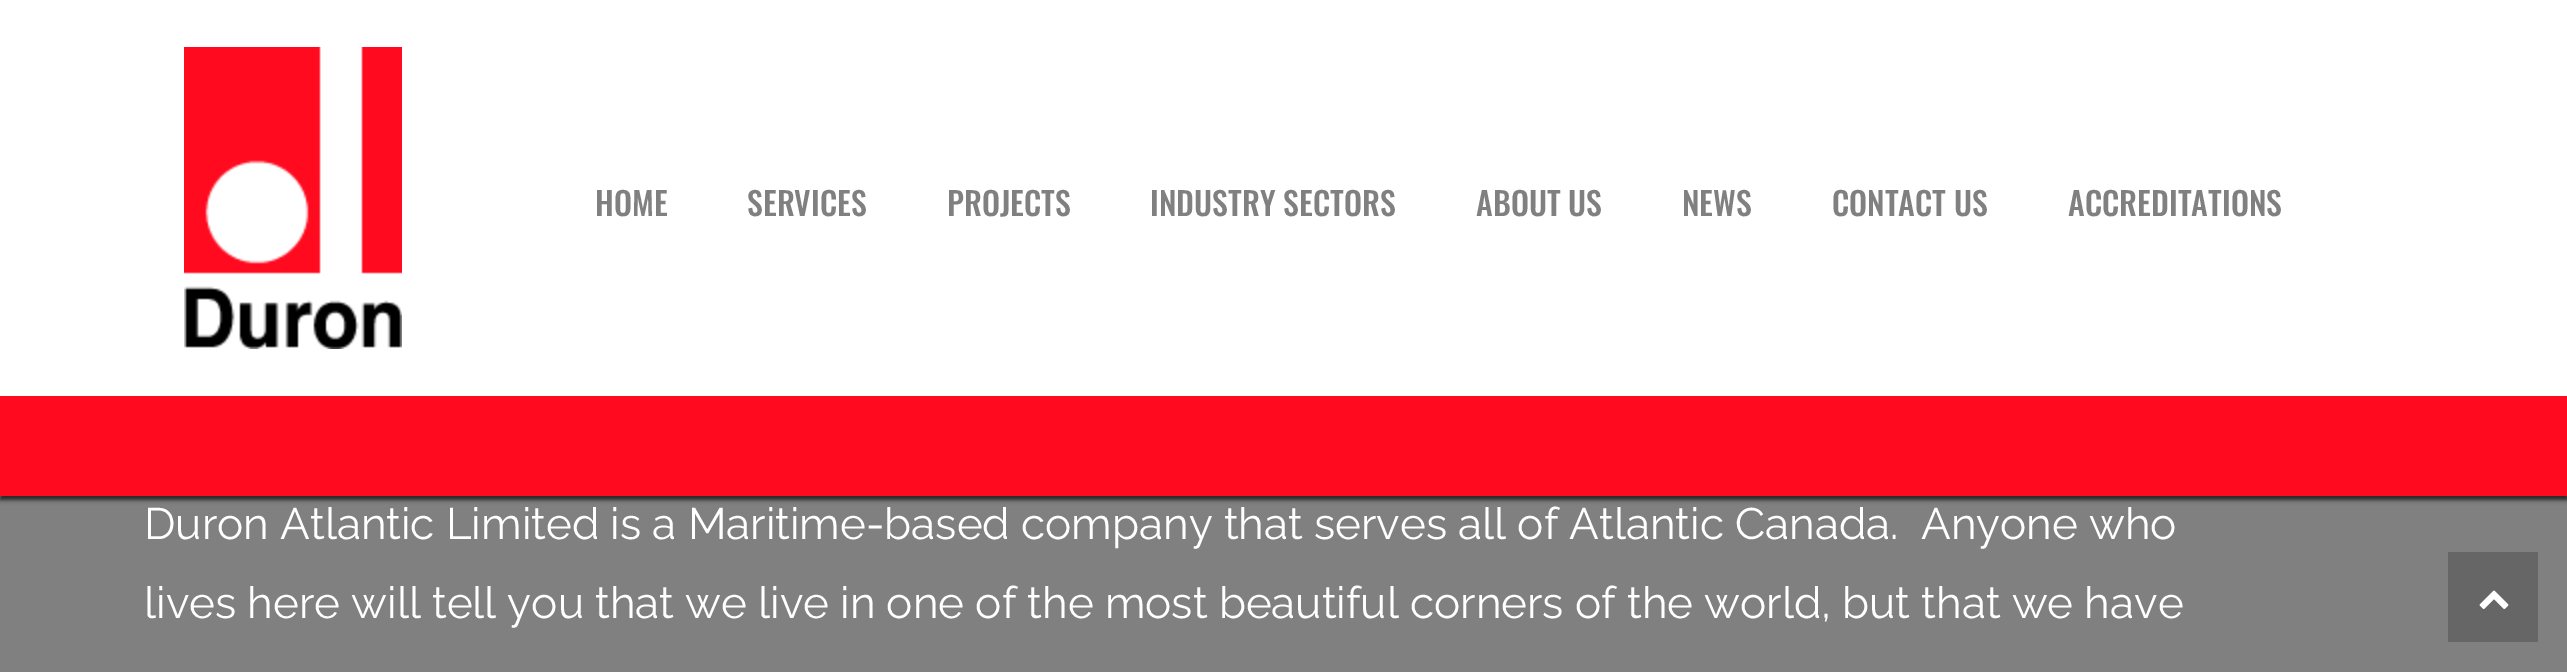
%!PS
<< /PageSize [2567 672] /PageUsesTransparency true >> setpagedevice
/rgb { 3 { 255 div 3 1 roll } repeat setrgbcolor } def
/font { [ exch dup neg 0 0 3 -1 roll 0 0 ] selectfont } def
/alpha { dup .setfillconstantalpha .setstrokeconstantalpha } def
/roundrect { 5 dict begin { /r /h /w /y /x } { exch def } forall
  x r add y moveto x w add y 2 copy h add r arct x w add y h add x 1 index r arct
  x y h add x y r arct x y 2 copy exch w add exch r arct closepath end } def
/shadow { 12 dict begin { /a /b /q /h /w /y /x } { exch def } forall gsave /was 0 def
  9 -2 -9 { dup b mul 4 div /e exch def 1 sub .425 mul 2.718 exch exp 1 add a .99 .min exch div /now exch def
    1 1 now sub 1 was sub div sub alpha /was now def
    w h .min e 2 mul add 0 gt { x e sub y e sub w e 2 mul add h e 2 mul add
      q e add b .6 mul add w h .min 2 div e add .min 0 .max roundrect fill } if } for grestore end } def
/picture { 5 dict begin { /h /w /y /x /name } { exch def } forall
  gsave x y translate w h scale
  w h 8 [w 0 0 h 0 0] name (r) file false 3 colorimage grestore end } def
0 .pushpdf14devicefilter
0 672 translate 1 -1 scale
4 setmiterlimit
128 128 128 rgb
0 0 2567 672 rectfill
0 0 0 rgb
0 4 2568 496 0 2 0.7 shadow
255 10 30 rgb
0 396 2567 100 rectfill
255 255 255 rgb
0 0 2567 396 rectfill
(img/1.rgb) 184 47 218 302 picture
102 102 102 rgb
2448 552 90 90 rectfill
(img/2.rgb) 2479 590 30 19 picture
/Oswald-Medium 32 font
128 128 128 rgb
[
  [(HOME) 595 216]
  [(SERVICES) 747 216]
  [(PROJECTS) 947 216]
  [(INDUSTRY SECTORS) 1150 216]
  [(ABOUT US) 1476 216]
  [(NEWS) 1682 216]
  [(CONTACT US) 1832 216]
  [(ACCREDITATIONS) 2068 216]
] { aload pop moveto show } forall
/Raleway-Regular 44 font
255 255 255 rgb
144 539 moveto (Duron Atlantic Limited is a Maritime-based company that serves all of Atlantic Canada.  Anyone who) show
144 618 moveto (lives here will tell you that we live in one of the most beautiful corners of the world, but that we have) show
.poppdf14devicefilter showpage
